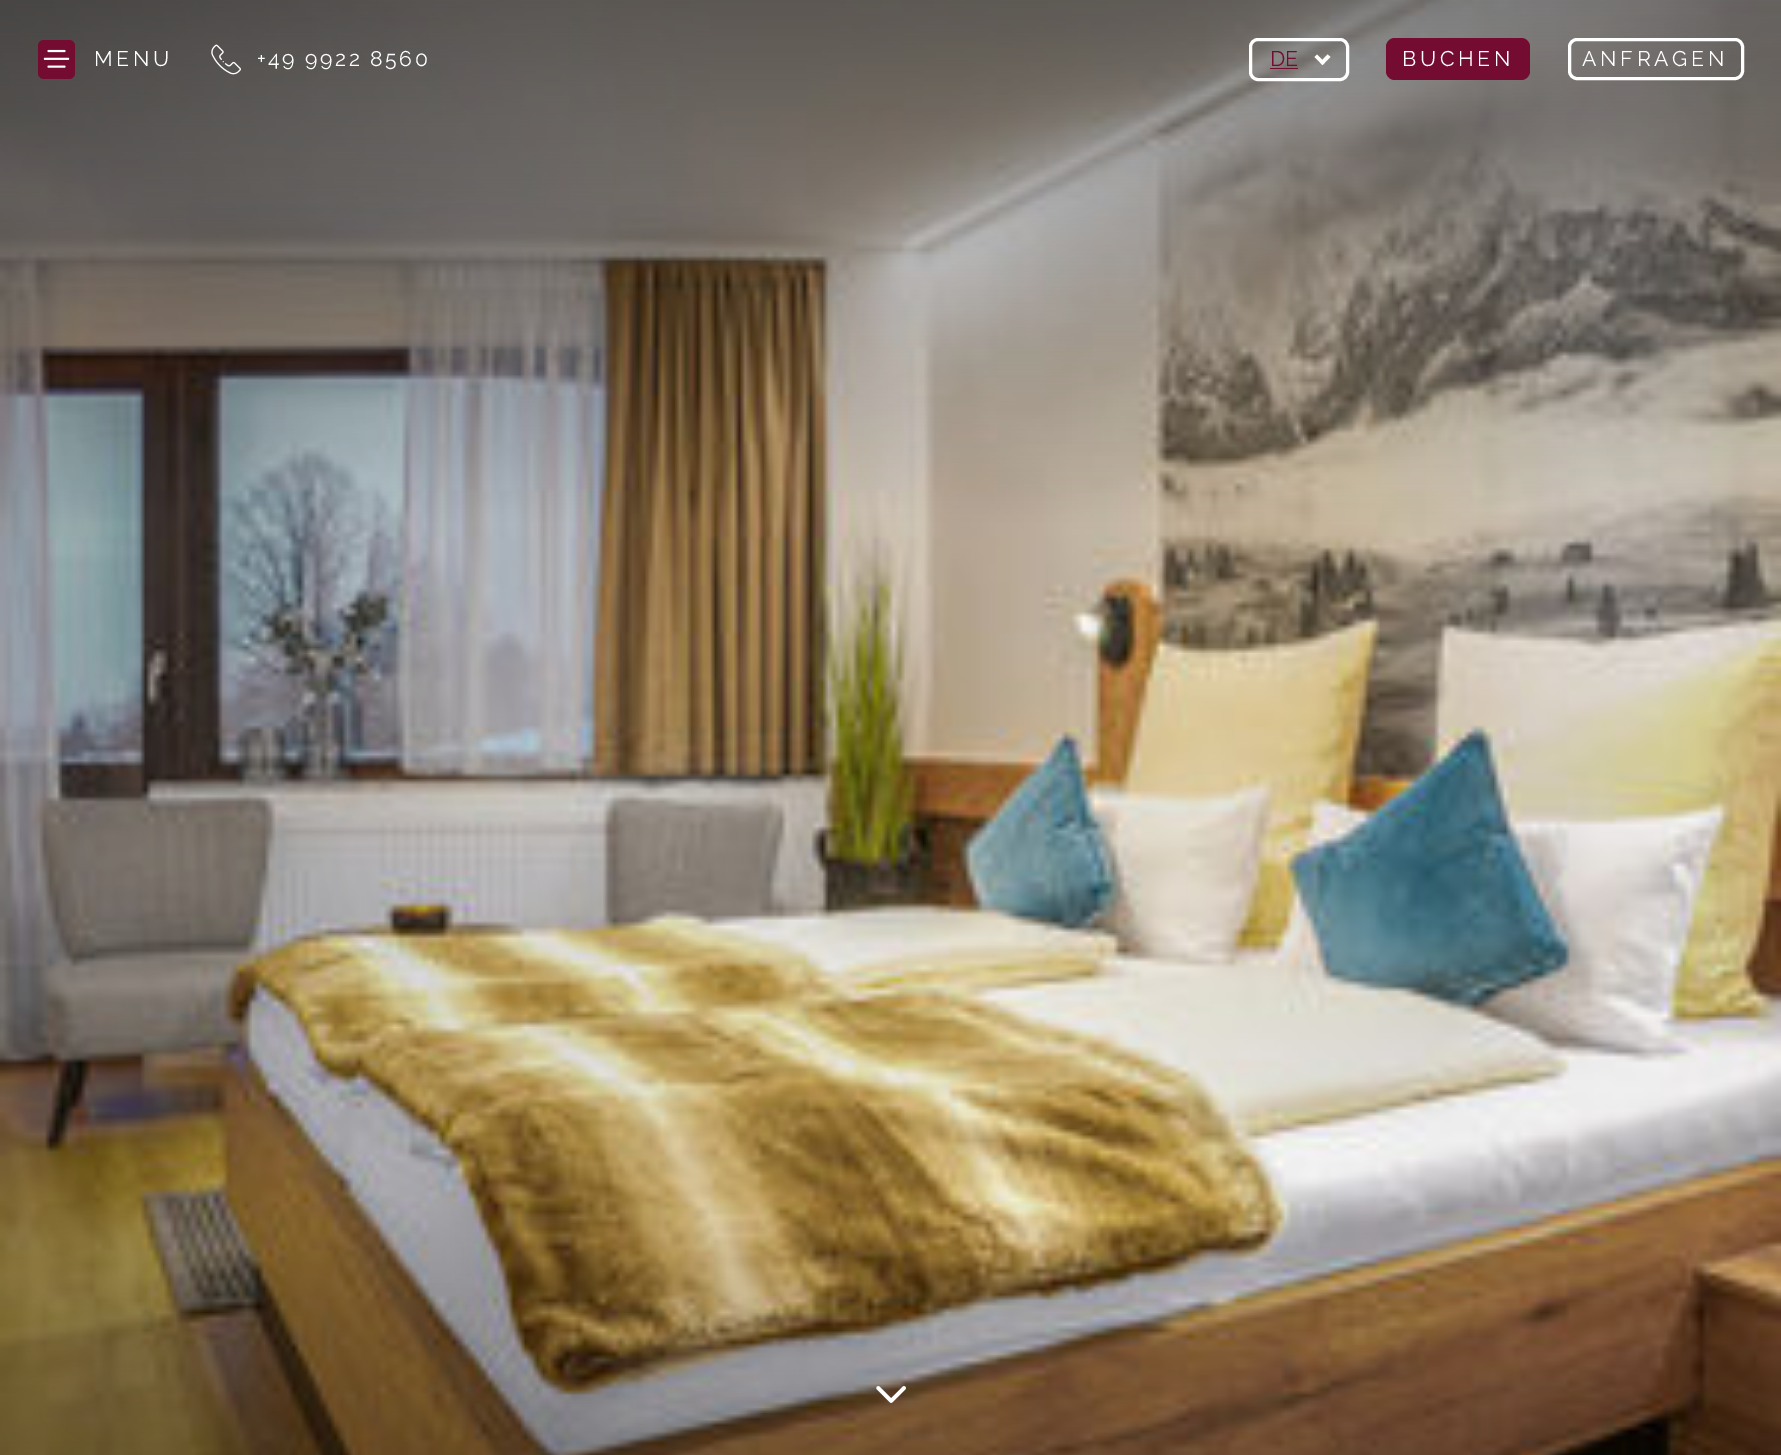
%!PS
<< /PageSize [1781 1455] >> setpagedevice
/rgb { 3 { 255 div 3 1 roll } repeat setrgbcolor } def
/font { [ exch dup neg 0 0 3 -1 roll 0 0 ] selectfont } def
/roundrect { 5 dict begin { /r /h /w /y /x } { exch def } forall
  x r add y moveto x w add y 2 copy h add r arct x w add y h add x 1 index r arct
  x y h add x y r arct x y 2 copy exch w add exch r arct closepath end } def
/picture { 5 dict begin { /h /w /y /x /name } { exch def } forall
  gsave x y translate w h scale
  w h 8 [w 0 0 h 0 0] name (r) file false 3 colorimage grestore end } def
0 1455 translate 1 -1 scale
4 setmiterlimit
255 255 255 rgb
0 0 1781 1455 rectfill
(img/1.rgb) 0 0 1781 1455 picture
(img/2.rgb) 876 1386 30 17 picture
116 12 49 rgb
38 40 37 39 6 roundrect fill
(img/3.rgb) 43 49 27 19 picture
(img/4.rgb) 211 44 30 31 picture
255 255 255 rgb
3 setlinewidth
1250.5 39.5 97 40 7.5 roundrect stroke
116 12 49 rgb
1270 68 28 1 rectfill
255 255 255 rgb
1327.5 54.5 moveto 1330.5 57 lineto 1322.5 65 lineto 1320 62.5 lineto closepath fill
1317 54.5 moveto 1325 62.5 lineto 1322.5 65 lineto 1314.5 57 lineto closepath fill
116 12 49 rgb
1386 38 144 42 9 roundrect fill
255 255 255 rgb
1569.5 39.5 173 39 7.5 roundrect stroke
/Raleway-Thin 21.25 font
94 66 moveto 3.75 0 (MENU) ashow
257 66 moveto 2.5 0 (+49 9922 8560) ashow
116 12 49 rgb
1270 66 moveto (DE) show
255 255 255 rgb
1402 66 moveto 3.75 0 (BUCHEN) ashow
1582 66 moveto 3.75 0 (ANFRAGEN) ashow
showpage
